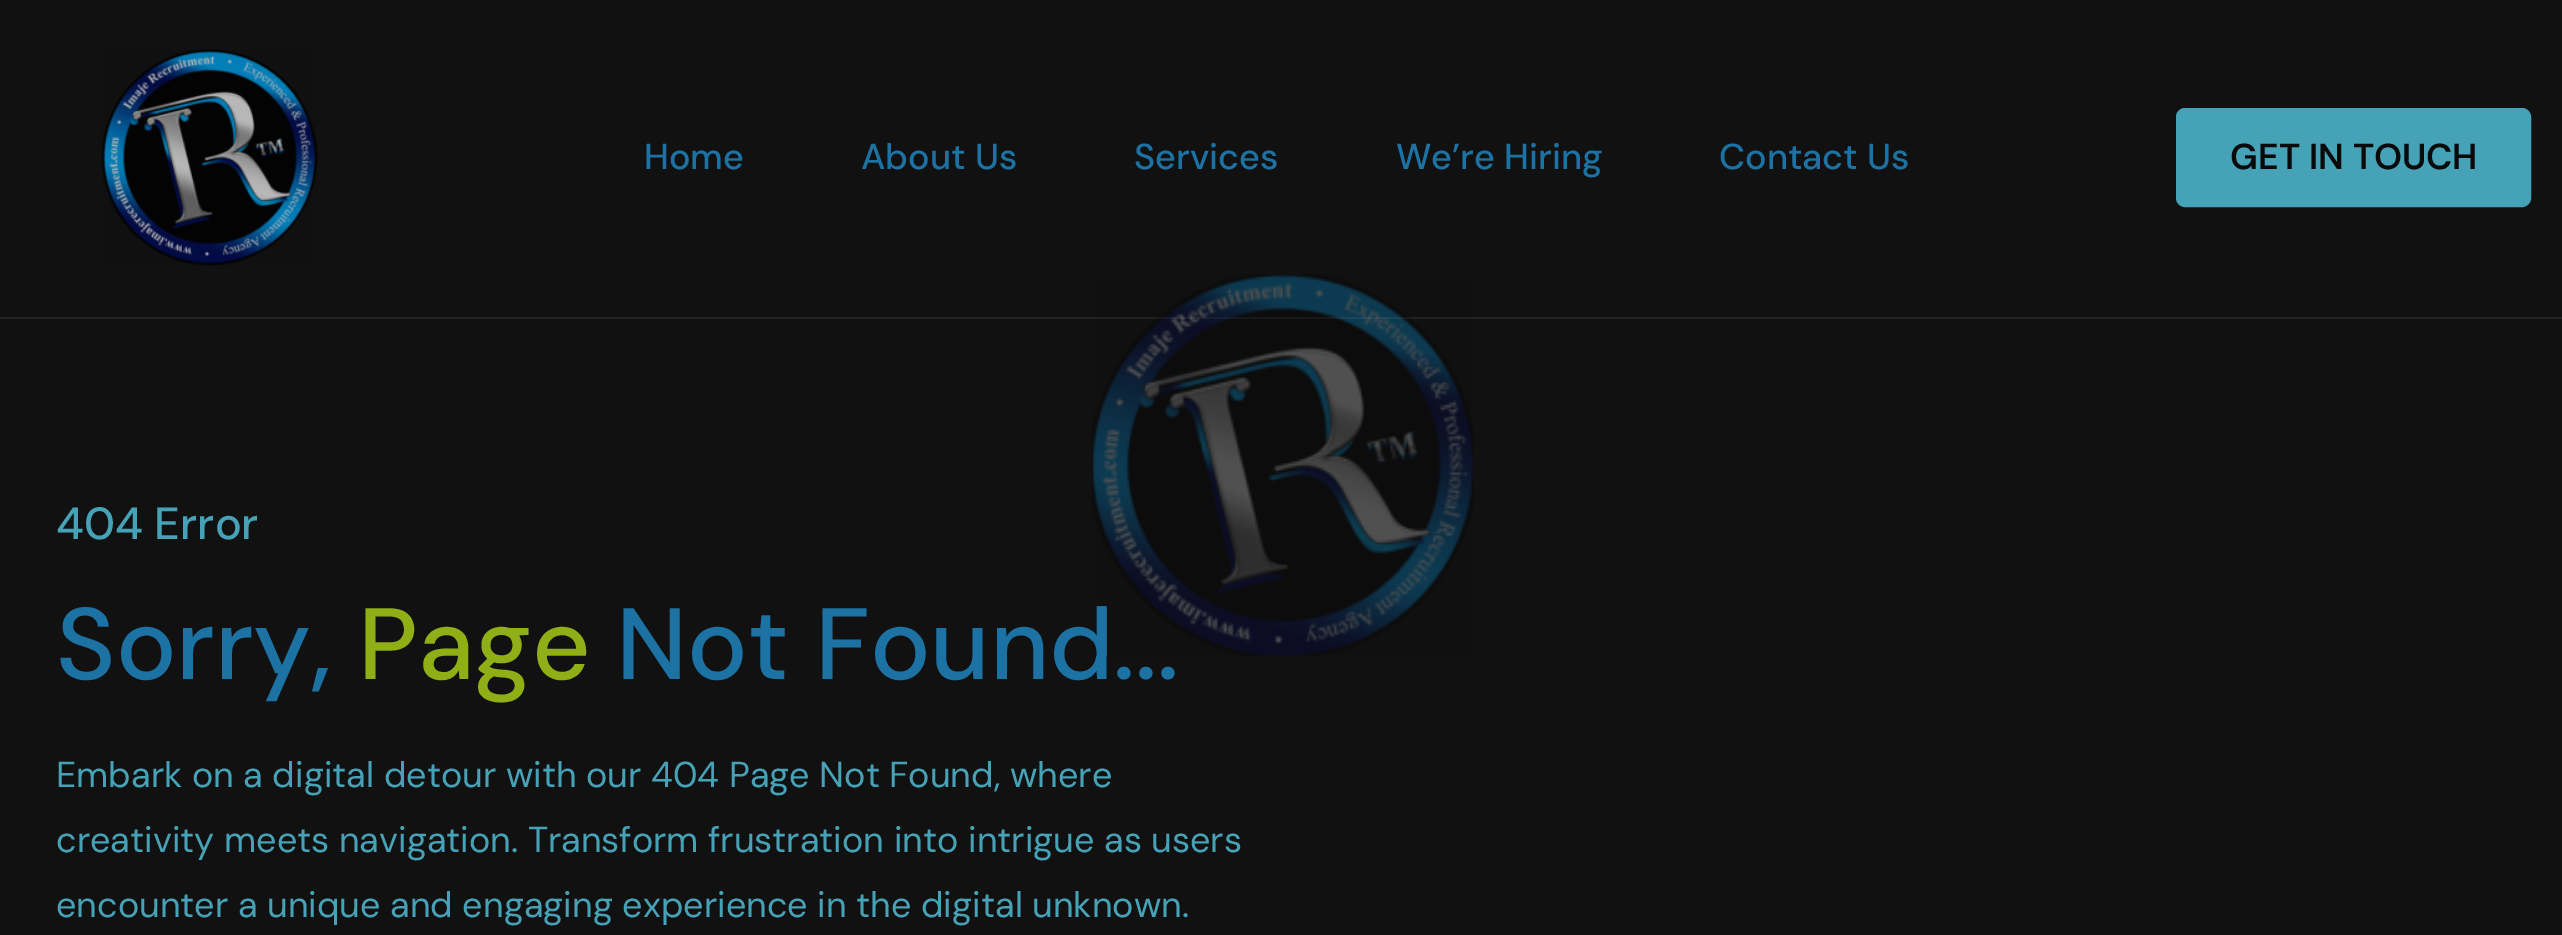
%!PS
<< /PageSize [2562 935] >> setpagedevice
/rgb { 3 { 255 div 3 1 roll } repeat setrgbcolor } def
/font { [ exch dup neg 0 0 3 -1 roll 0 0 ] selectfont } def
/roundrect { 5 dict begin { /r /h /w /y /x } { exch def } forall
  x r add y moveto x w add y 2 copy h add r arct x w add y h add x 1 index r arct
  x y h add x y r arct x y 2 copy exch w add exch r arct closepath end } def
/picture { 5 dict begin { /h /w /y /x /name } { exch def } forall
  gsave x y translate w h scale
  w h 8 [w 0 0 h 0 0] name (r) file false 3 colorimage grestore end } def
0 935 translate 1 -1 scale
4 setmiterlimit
17 17 17 rgb
0 0 2562 935 rectfill
34 34 34 rgb
0 317 2562 2 rectfill
(img/1.rgb) 101 49 217 217 picture
70 162 183 rgb
2178.5 110.5 350 94 6.5 roundrect gsave fill grestore
5 setlinewidth
stroke
/DMSans-Medium 36 font
29 114 164 rgb
[
  [(Home) 644 169]
  [(About Us) 861 169]
  [(Services) 1134 169]
  [(We’re Hiring) 1396 169]
  [(Contact Us) 1719 169]
] { aload pop moveto show } forall
/DMSans-SemiBold 36 font
10 10 10 rgb
2230 169 moveto (GET IN TOUCH) show
/DMSans-Medium 45 font
70 162 183 rgb
56 539 moveto (404 Error) show
/DMSans-Medium 101.25 font
29 114 164 rgb
56 679 moveto (Sorry,) show
144 175 23 rgb
358 679 moveto (Page) show
29 114 164 rgb
616 679 moveto (Not Found...) show
/DMSans-Regular 36 font
70 162 183 rgb
[
  [(Embark on a digital detour with our 404 Page Not Found, where) 56 787]
  [(creativity meets navigation. Transform frustration into intrigue as users) 56 852]
  [(encounter a unique and engaging experience in the digital unknown.) 56 917]
] { aload pop moveto show } forall
(img/3.rgb) 1092 274 382 382 picture
(img/2.rgb) 1092 274 381 381 picture
showpage
